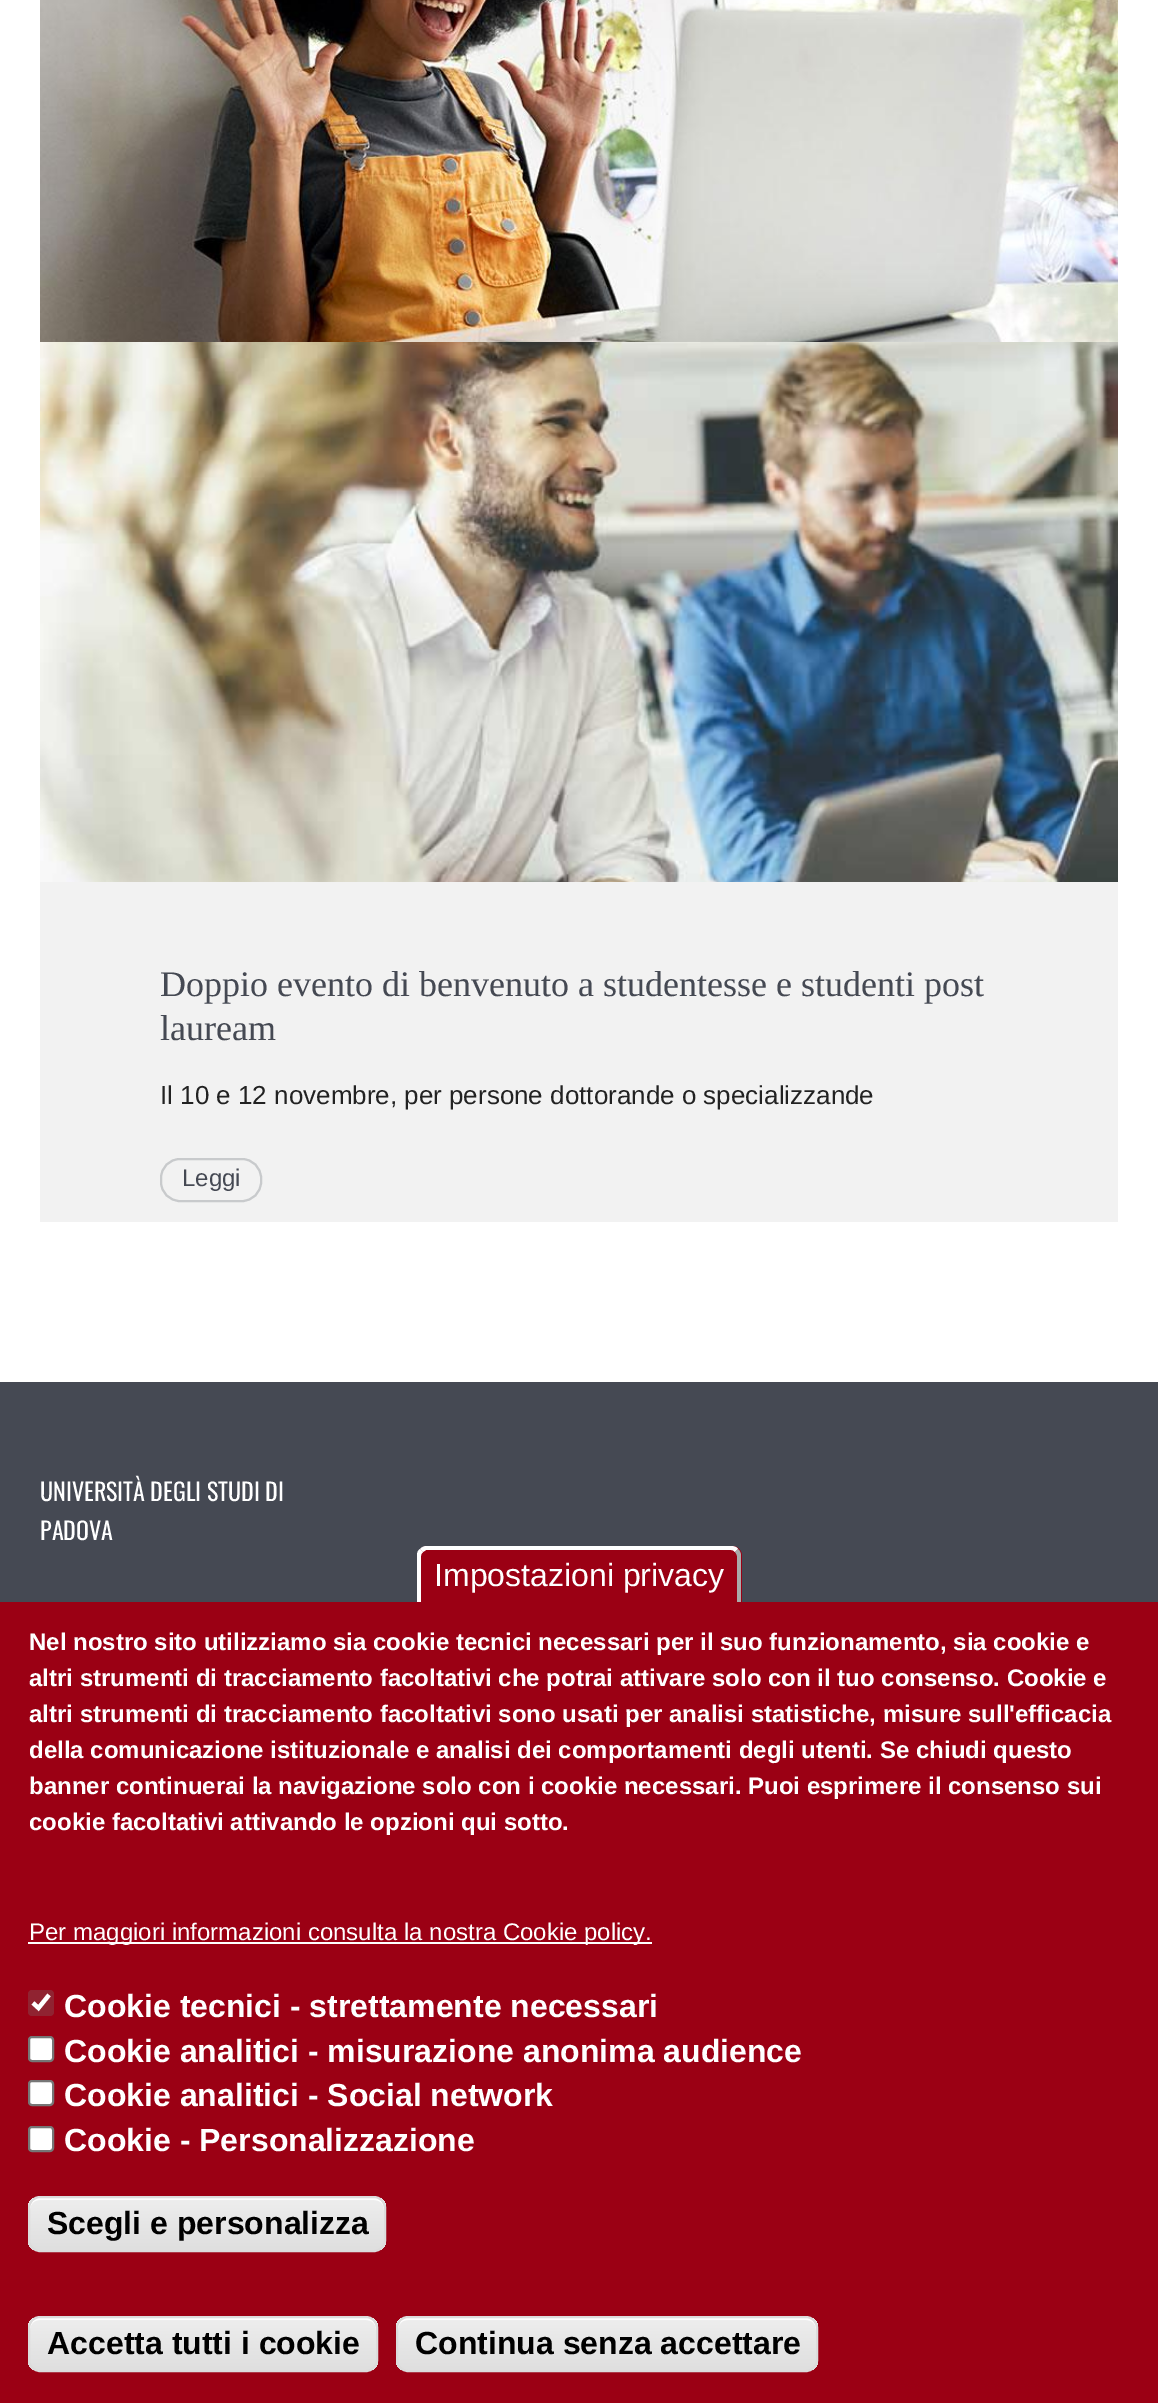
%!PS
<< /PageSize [1158 2403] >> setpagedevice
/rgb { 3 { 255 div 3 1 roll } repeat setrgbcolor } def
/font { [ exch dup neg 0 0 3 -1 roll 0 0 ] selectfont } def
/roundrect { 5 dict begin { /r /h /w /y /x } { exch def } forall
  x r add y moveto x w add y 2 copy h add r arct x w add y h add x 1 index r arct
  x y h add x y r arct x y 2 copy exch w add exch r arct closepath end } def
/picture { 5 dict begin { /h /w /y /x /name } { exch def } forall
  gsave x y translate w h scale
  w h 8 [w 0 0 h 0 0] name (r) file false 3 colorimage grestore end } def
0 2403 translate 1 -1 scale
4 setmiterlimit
255 255 255 rgb
0 0 1158 2403 rectfill
(img/1.rgb) 40 0 1078 342 picture
(img/2.rgb) 40 342 1078 540 picture
242 242 242 rgb
40 882 1078 340 rectfill
200 202 204 rgb
2 setlinewidth
161 1159 100 42 19 roundrect stroke
69 73 83 rgb
0 1382 1158 220 rectfill
155 0 20 rgb
0 1602 1158 801 rectfill
428 1546 moveto 732 1546 lineto 737.5 1546 742 1550.5 742 1556 curveto 742 1602 lineto 418 1602 lineto 418 1556 lineto 418 1550.5 422.5 1546 428 1546 curveto closepath fill
255 255 255 rgb
427 1546 moveto 424 1546 422 1547 420 1549 curveto 423 1552 lineto 426 1550 lineto 731 1550 lineto 733 1550 734 1551 735 1552 curveto 738 1549 lineto 737 1547 734 1546 731 1546 curveto closepath fill
170 170 170 rgb
737 1602 moveto 741 1602 lineto 741 1556 lineto 741 1553 740 1551 738 1549 curveto 735 1552 lineto 736 1553 737 1555 737 1556 curveto closepath fill
255 255 255 rgb
417 1602 moveto 417 1555 lineto 417 1553 418 1550 420 1549 curveto 423 1552 lineto 422 1553 421 1554 421 1556 curveto 421 1602 lineto closepath fill
28 1942 624 2 rectfill
144 35 49 rgb
28 1990 26 26 4 roundrect fill
255 255 255 rgb
4.2 setlinewidth
33 2003 moveto 38.5 2008 lineto 49 1995 lineto stroke
29 2037 24 24 3 roundrect gsave fill grestore
118 118 118 rgb
2 setlinewidth
stroke
255 255 255 rgb
29 2081 24 24 3 roundrect gsave fill grestore
118 118 118 rgb
stroke
255 255 255 rgb
29 2127 24 24 3 roundrect gsave fill grestore
118 118 118 rgb
stroke
gsave
28 2196 358 56 12 roundrect clip newpath
gsave 28 2198 moveto 386 2198 lineto 386 2250 lineto 28 2250 lineto closepath clip newpath
<< /ShadingType 2 /ColorSpace /DeviceRGB /Coords [207 2198 207 2250] /Extend [true true] /Function << /FunctionType 3 /Domain [0 1] /Functions [<< /FunctionType 2 /Domain [0 1] /C0 [0.929 0.929 0.929] /C1 [0.929 0.929 0.929] /N 1 >> << /FunctionType 2 /Domain [0 1] /C0 [0.929 0.929 0.929] /C1 [0.875 0.875 0.875] /N 1 >>] /Bounds [0.05] /Encode [0 1 0 1] >> >> shfill grestore
grestore
255 255 255 rgb
40 2200 moveto 374 2200 lineto 380 2200 384 2204 384 2210 curveto 384 2205 382 2199 376 2198 curveto 40 2198 lineto 33 2198 30 2204 30 2210 curveto 30 2204 34 2200 40 2200 curveto closepath fill
220 220 220 rgb
29 2197 356 54 11 roundrect stroke
gsave
28 2316 350 56 12 roundrect clip newpath
gsave 28 2318 moveto 378 2318 lineto 378 2370 lineto 28 2370 lineto closepath clip newpath
<< /ShadingType 2 /ColorSpace /DeviceRGB /Coords [203 2318 203 2370] /Extend [true true] /Function << /FunctionType 3 /Domain [0 1] /Functions [<< /FunctionType 2 /Domain [0 1] /C0 [0.929 0.929 0.929] /C1 [0.929 0.929 0.929] /N 1 >> << /FunctionType 2 /Domain [0 1] /C0 [0.929 0.929 0.929] /C1 [0.875 0.875 0.875] /N 1 >>] /Bounds [0.05] /Encode [0 1 0 1] >> >> shfill grestore
grestore
255 255 255 rgb
40 2320 moveto 366 2320 lineto 372 2320 376 2324 376 2330 curveto 376 2325 374 2319 368 2318 curveto 40 2318 lineto 33 2318 30 2324 30 2330 curveto 30 2324 34 2320 40 2320 curveto closepath fill
220 220 220 rgb
29 2317 348 54 11 roundrect stroke
gsave
396 2316 422 56 12 roundrect clip newpath
gsave 396 2318 moveto 818 2318 lineto 818 2370 lineto 396 2370 lineto closepath clip newpath
<< /ShadingType 2 /ColorSpace /DeviceRGB /Coords [607 2318 607 2370] /Extend [true true] /Function << /FunctionType 3 /Domain [0 1] /Functions [<< /FunctionType 2 /Domain [0 1] /C0 [0.929 0.929 0.929] /C1 [0.929 0.929 0.929] /N 1 >> << /FunctionType 2 /Domain [0 1] /C0 [0.929 0.929 0.929] /C1 [0.875 0.875 0.875] /N 1 >>] /Bounds [0.05] /Encode [0 1 0 1] >> >> shfill grestore
grestore
255 255 255 rgb
408 2320 moveto 806 2320 lineto 812 2320 816 2324 816 2330 curveto 816 2328 lineto 816 2322 812 2318 806 2318 curveto 408 2318 lineto 402 2318 398 2322 398 2328 curveto 398 2330 lineto 398 2324 402 2320 408 2320 curveto closepath fill
220 220 220 rgb
397 2317 420 54 11 roundrect stroke
/LiberationSerif-Regular 36 font
69 73 83 rgb
160 996 moveto (Doppio evento di benvenuto a studentesse e studenti post) show
160 1040 moveto (lauream) show
/LiberationSans-Regular 26 font
34 34 34 rgb
160 1104 moveto (Il 10 e 12 novembre, per persone dottorande o specializzande) show
/LiberationSans-Regular 24 font
69 73 83 rgb
182 1186 moveto (Leggi) show
/Oswald-Regular 24 font
255 255 255 rgb
40 1501 moveto (UNIVERSITÀ DEGLI STUDI DI) show
40 1540 moveto (PADOVA) show
/LiberationSans-Regular 32 font
434 1586 moveto (Impostazioni privacy) show
/LiberationSans-Bold 24 font
[
  [(Nel nostro sito utilizziamo sia cookie tecnici necessari per il suo funzionamento, sia cookie e) 29 1650]
  [(altri strumenti di tracciamento facoltativi che potrai attivare solo con il tuo consenso. Cookie e) 29 1686]
  [(altri strumenti di tracciamento facoltativi sono usati per analisi statistiche, misure sull'efficacia) 29 1722]
  [(della comunicazione istituzionale e analisi dei comportamenti degli utenti. Se chiudi questo) 29 1758]
  [(banner continuerai la navigazione solo con i cookie necessari. Puoi esprimere il consenso sui) 29 1794]
  [(cookie facoltativi attivando le opzioni qui sotto.) 29 1830]
] { aload pop moveto show } forall
/LiberationSans-Regular 24 font
29 1940 moveto (Per maggiori informazioni consulta la nostra Cookie policy.) show
/LiberationSans-Bold 32 font
[
  [(Cookie tecnici - strettamente necessari) 64 2017]
  [(Cookie analitici - misurazione anonima audience) 64 2062]
  [(Cookie analitici - Social network) 64 2106]
  [(Cookie - Personalizzazione) 64 2151]
] { aload pop moveto show } forall
0 0 0 rgb
[
  [(Scegli e personalizza) 47 2234]
  [(Accetta tutti i cookie) 47 2354]
  [(Continua senza accettare) 415 2354]
] { aload pop moveto show } forall
showpage
